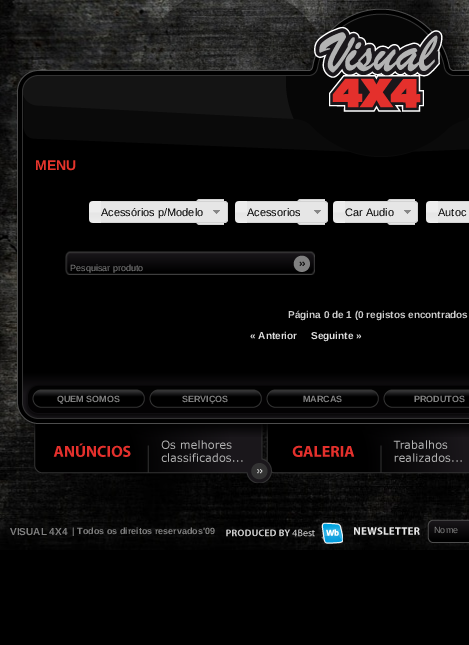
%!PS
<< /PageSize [469 645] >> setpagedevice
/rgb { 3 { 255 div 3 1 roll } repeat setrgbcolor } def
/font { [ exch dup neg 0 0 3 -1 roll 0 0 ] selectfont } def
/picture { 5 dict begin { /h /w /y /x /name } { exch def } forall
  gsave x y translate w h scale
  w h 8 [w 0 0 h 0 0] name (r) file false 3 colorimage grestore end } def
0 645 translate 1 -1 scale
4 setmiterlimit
0 0 0 rgb
0 0 469 645 rectfill
(img/1.rgb) 0 0 469 550 picture
(img/2.rgb) 17 8 452 150 picture
(img/3.rgb) 16 158 453 208 picture
230 230 230 rgb
200 199 moveto 224 199 lineto 224 225 lineto 200 225 lineto 198 225 196 223 196 221 curveto 196 203 lineto 196 201 198 199 200 199 curveto closepath fill
(img/4.rgb) 89 201 139 22 picture
211 211 211 rgb
200 199 moveto 224 199 lineto 224 225 lineto 200 225 lineto 198 225 196 223 196 221 curveto 196 203 lineto 196 201 198 199 200 199 curveto closepath 200 200 moveto 224 200 lineto 224 224 lineto 200 224 lineto 198.5 224 197 222.5 197 221 curveto 197 203 lineto 197 201.5 198.5 200 200 200 curveto closepath eofill
230 230 230 rgb
101 201 moveto 224 201 lineto 226 201 228 203 228 205 curveto 228 219 lineto 228 221 226 223 224 223 curveto 101 223 lineto closepath fill
211 211 211 rgb
101 201 moveto 224 201 lineto 226 201 228 203 228 205 curveto 228 219 lineto 228 221 226 223 224 223 curveto 101 223 lineto closepath 101 202 moveto 224 202 lineto 226 202 227 203 227 205 curveto 227 219 lineto 227 221 226 222 224 222 curveto 101 222 lineto closepath eofill
(img/5.rgb) 213 210 7 4 picture
230 230 230 rgb
301 199 moveto 325 199 lineto 325 225 lineto 301 225 lineto 299 225 297 223 297 221 curveto 297 203 lineto 297 201 299 199 301 199 curveto closepath fill
(img/6.rgb) 235 201 93 22 picture
211 211 211 rgb
301 199 moveto 325 199 lineto 325 225 lineto 301 225 lineto 299 225 297 223 297 221 curveto 297 203 lineto 297 201 299 199 301 199 curveto closepath 301 200 moveto 325 200 lineto 325 224 lineto 301 224 lineto 299.5 224 298 222.5 298 221 curveto 298 203 lineto 298 201.5 299.5 200 301 200 curveto closepath eofill
230 230 230 rgb
247 201 moveto 324 201 lineto 326 201 328 203 328 205 curveto 328 219 lineto 328 221 326 223 324 223 curveto 247 223 lineto closepath fill
211 211 211 rgb
247 201 moveto 324 201 lineto 326 201 328 203 328 205 curveto 328 219 lineto 328 221 326 223 324 223 curveto 247 223 lineto closepath 247 202 moveto 324 202 lineto 326 202 327 203 327 205 curveto 327 219 lineto 327 221 326 222 324 222 curveto 247 222 lineto closepath eofill
(img/5.rgb) 314 210 7 4 picture
230 230 230 rgb
391 199 moveto 415 199 lineto 415 225 lineto 391 225 lineto 389 225 387 223 387 221 curveto 387 203 lineto 387 201 389 199 391 199 curveto closepath fill
(img/7.rgb) 333 201 85 22 picture
211 211 211 rgb
391 199 moveto 415 199 lineto 415 225 lineto 391 225 lineto 389 225 387 223 387 221 curveto 387 203 lineto 387 201 389 199 391 199 curveto closepath 391 200 moveto 415 200 lineto 415 224 lineto 391 224 lineto 389.5 224 388 222.5 388 221 curveto 388 203 lineto 388 201.5 389.5 200 391 200 curveto closepath eofill
230 230 230 rgb
345 201 moveto 414 201 lineto 416 201 418 203 418 205 curveto 418 219 lineto 418 221 416 223 414 223 curveto 345 223 lineto closepath fill
211 211 211 rgb
345 201 moveto 414 201 lineto 416 201 418 203 418 205 curveto 418 219 lineto 418 221 416 223 414 223 curveto 345 223 lineto closepath 345 202 moveto 414 202 lineto 416 202 417 203 417 205 curveto 417 219 lineto 417 221 416 222 414 222 curveto 345 222 lineto closepath eofill
(img/5.rgb) 404 210 7 4 picture
(img/8.rgb) 426 201 12 22 picture
230 230 230 rgb
438 202 31 20 rectfill
211 211 211 rgb
438 201 moveto 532 201 lineto 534 201 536 203 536 205 curveto 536 219 lineto 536 221 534 223 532 223 curveto 438 223 lineto closepath 438 202 moveto 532 202 lineto 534 202 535 203 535 205 curveto 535 219 lineto 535 221 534 222 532 222 curveto 438 222 lineto closepath eofill
(img/9.rgb) 65 251 250 24 picture
(img/10.rgb) 293 255 17 17 picture
(img/14.rgb) 34 424 435 59 picture
(img/11.rgb) 16 366 453 71 picture
(img/12.rgb) 32 389 113 19 picture
(img/12.rgb) 149 389 113 19 picture
(img/12.rgb) 266 389 113 19 picture
(img/13.rgb) 383 389 86 19 picture
(img/15.rgb) 226 522 117 22 picture
(img/16.rgb) 354 519 115 24 picture
/LiberationSans-Bold 14 font
229 53 44 rgb
35 170 moveto (MENU) show
/LiberationSans-Regular 11 font
0 0 0 rgb
[
  [(Acessórios p/Modelo) 101 216]
  [(Acessorios) 247 216]
  [(Car Audio) 345 216]
  [(Autoc) 438 216]
] { aload pop moveto show } forall
/LiberationSans-Regular 9 font
128 128 128 rgb
70 271 moveto (Pesquisar produto) show
/LiberationSans-Bold 10 font
204 204 204 rgb
288 318 moveto (Página 0 de 1 \(0 registos encontrados) show
221 221 221 rgb
250 339 moveto (« Anterior) show
311 339 moveto (Seguinte ») show
/LiberationSans-Bold 9 font
128 128 128 rgb
[
  [(QUEM SOMOS) 57 402]
  [(SERVIÇOS) 182 402]
  [(MARCAS) 303 402]
  [(PRODUTOS) 414 402]
] { aload pop moveto show } forall
/LiberationSans-Bold 10 font
10 535 moveto (VISUAL 4X4) show
/LiberationSans-Bold 9 font
72 534 moveto (| Todos os direitos reservados'09) show
/LiberationSans-Regular 9 font
434 533 moveto (Nome) show
showpage
